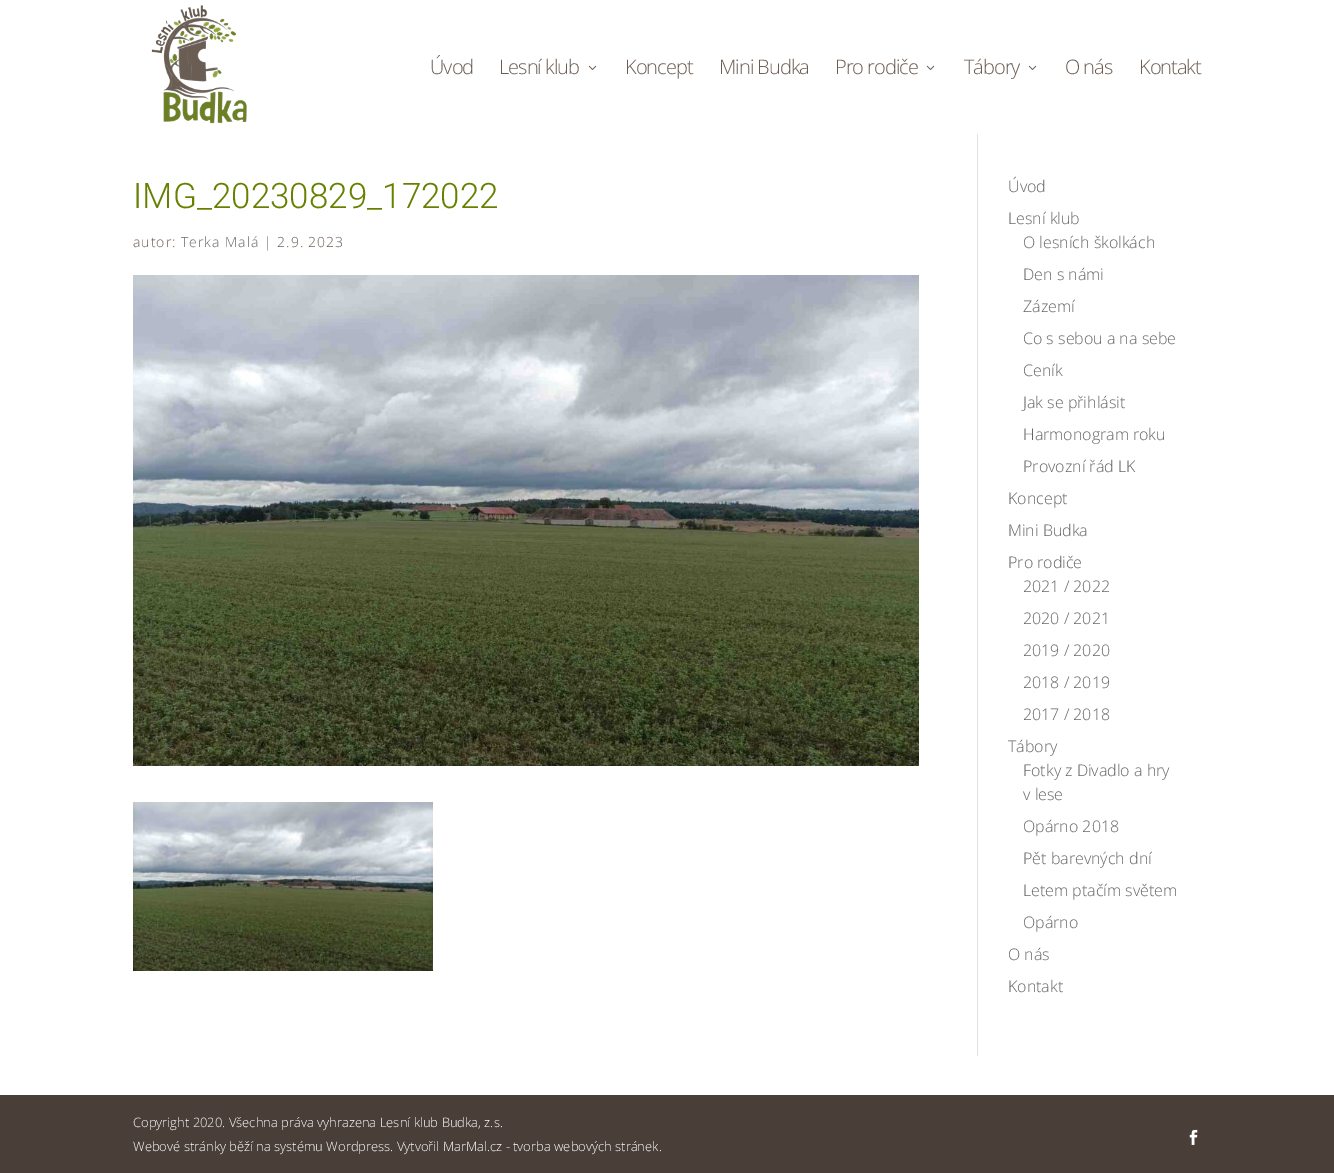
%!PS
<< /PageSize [1334 1173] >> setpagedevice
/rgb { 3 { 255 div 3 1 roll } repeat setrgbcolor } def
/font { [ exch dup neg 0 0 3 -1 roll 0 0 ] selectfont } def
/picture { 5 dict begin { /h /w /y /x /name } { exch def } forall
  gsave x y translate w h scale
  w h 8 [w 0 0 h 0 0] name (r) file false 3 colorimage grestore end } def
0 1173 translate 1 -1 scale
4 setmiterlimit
255 255 255 rgb
0 0 1334 1173 rectfill
(img/1.rgb) 151 5 96 119 picture
(img/2.rgb) 588 65 9 5 picture
(img/2.rgb) 926 65 9 5 picture
(img/2.rgb) 1028 65 9 5 picture
226 226 226 rgb
977 134 1 922 rectfill
(img/3.rgb) 133 275 786 491 picture
(img/4.rgb) 133 802 300 169 picture
73 63 56 rgb
0 1095 1334 78 rectfill
(img/5.rgb) 1189 1129 9 16 picture
/OpenSans-Light 20 font
108 93 83 rgb
430 74 moveto -1 0 (Úvod) ashow
499 74 moveto -1 0 (Lesní klub) ashow
625 74 moveto -1 0 (Koncept) ashow
719 74 moveto -1 0 (Mini Budka) ashow
835 74 moveto -1 0 (Pro rodiče) ashow
964 74 moveto -1 0 (Tábory) ashow
1065 74 moveto -1 0 (O nás) ashow
1139 74 moveto -1 0 (Kontakt) ashow
/Roboto-Light 35 font
102 128 0 rgb
133 208 moveto (IMG_20230829_172022) show
/OpenSans-Light 14 font
108 93 83 rgb
133 247 moveto 1 0 (autor:) ashow
102 102 102 rgb
181 247 moveto 1 0 (Terka Malá) ashow
108 93 83 rgb
264 247 moveto 1 0 (| 2.9. 2023) ashow
/OpenSans-Light 16 font
102 102 102 rgb
[
  [(Úvod) 1008 192]
  [(Lesní klub) 1008 224]
  [(O lesních školkách) 1023 248]
  [(Den s námi) 1023 280]
  [(Zázemí) 1023 312]
  [(Co s sebou a na sebe) 1023 344]
  [(Ceník) 1023 376]
  [(Jak se přihlásit) 1023 408]
  [(Harmonogram roku) 1023 440]
  [(Provozní řád LK) 1023 472]
  [(Koncept) 1008 504]
  [(Mini Budka) 1008 536]
  [(Pro rodiče) 1008 568]
  [(2021 / 2022) 1023 592]
  [(2020 / 2021) 1023 624]
  [(2019 / 2020) 1023 656]
  [(2018 / 2019) 1023 688]
  [(2017 / 2018) 1023 720]
  [(Tábory) 1008 752]
  [(Fotky z Divadlo a hry) 1023 776]
  [(v lese) 1023 800]
  [(Opárno 2018) 1023 832]
  [(Pět barevných dní) 1023 864]
  [(Letem ptačím světem) 1023 896]
  [(Opárno) 1023 928]
  [(O nás) 1008 960]
  [(Kontakt) 1008 992]
] { aload pop moveto show } forall
/OpenSans-Light 13 font
255 255 255 rgb
133 1127 moveto (Copyright 2020. Všechna práva vyhrazena Lesní klub Budka, z.s.) show
133 1151 moveto (Webové stránky běží na systému Wordpress. Vytvořil MarMal.cz - tvorba webových stránek.) show
showpage
